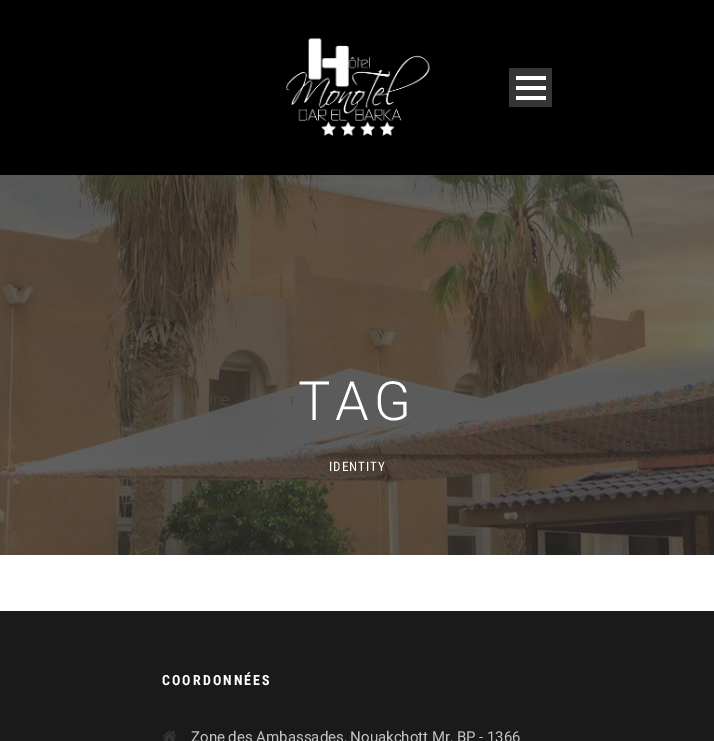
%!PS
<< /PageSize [714 741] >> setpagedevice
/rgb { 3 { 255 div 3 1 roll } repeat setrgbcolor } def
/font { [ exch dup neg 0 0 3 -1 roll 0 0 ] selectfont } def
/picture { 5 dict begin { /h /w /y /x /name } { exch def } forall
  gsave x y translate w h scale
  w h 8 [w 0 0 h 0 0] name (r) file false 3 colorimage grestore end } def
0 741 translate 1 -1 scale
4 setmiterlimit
255 255 255 rgb
0 0 714 741 rectfill
0 0 0 rgb
0 0 714 175 rectfill
(img/1.rgb) 285 38 145 98 picture
[
  [509 68 43 39 53 53 53]
  [516 96 30 4 255 255 255]
  [516 86 30 4 255 255 255]
  [516 76 30 4 255 255 255]
] { aload pop rgb rectfill } forall
(img/2.rgb) 0 175 714 380 picture
26 26 26 rgb
0 611 714 130 rectfill
(img/3.rgb) 162 730 15 11 picture
/Roboto-Light 16 font
78 74 68 rgb
209 405 moveto (ine) show
290 405 moveto (r) show
/Roboto-Light 54 font
255 255 255 rgb
298 420 moveto 5 0 (TAG) ashow
/RobotoCondensed-Regular 13 font
329 471 moveto 1 0 (IDENTITY) ashow
/RobotoCondensed-Bold 14 font
162 685 moveto 2 0 (COORDONNÉES) ashow
/Roboto-Regular 15 font
196 196 196 rgb
191 742 moveto (Zone des Ambassades, Nouakchott Mr, BP - 1366) show
showpage
